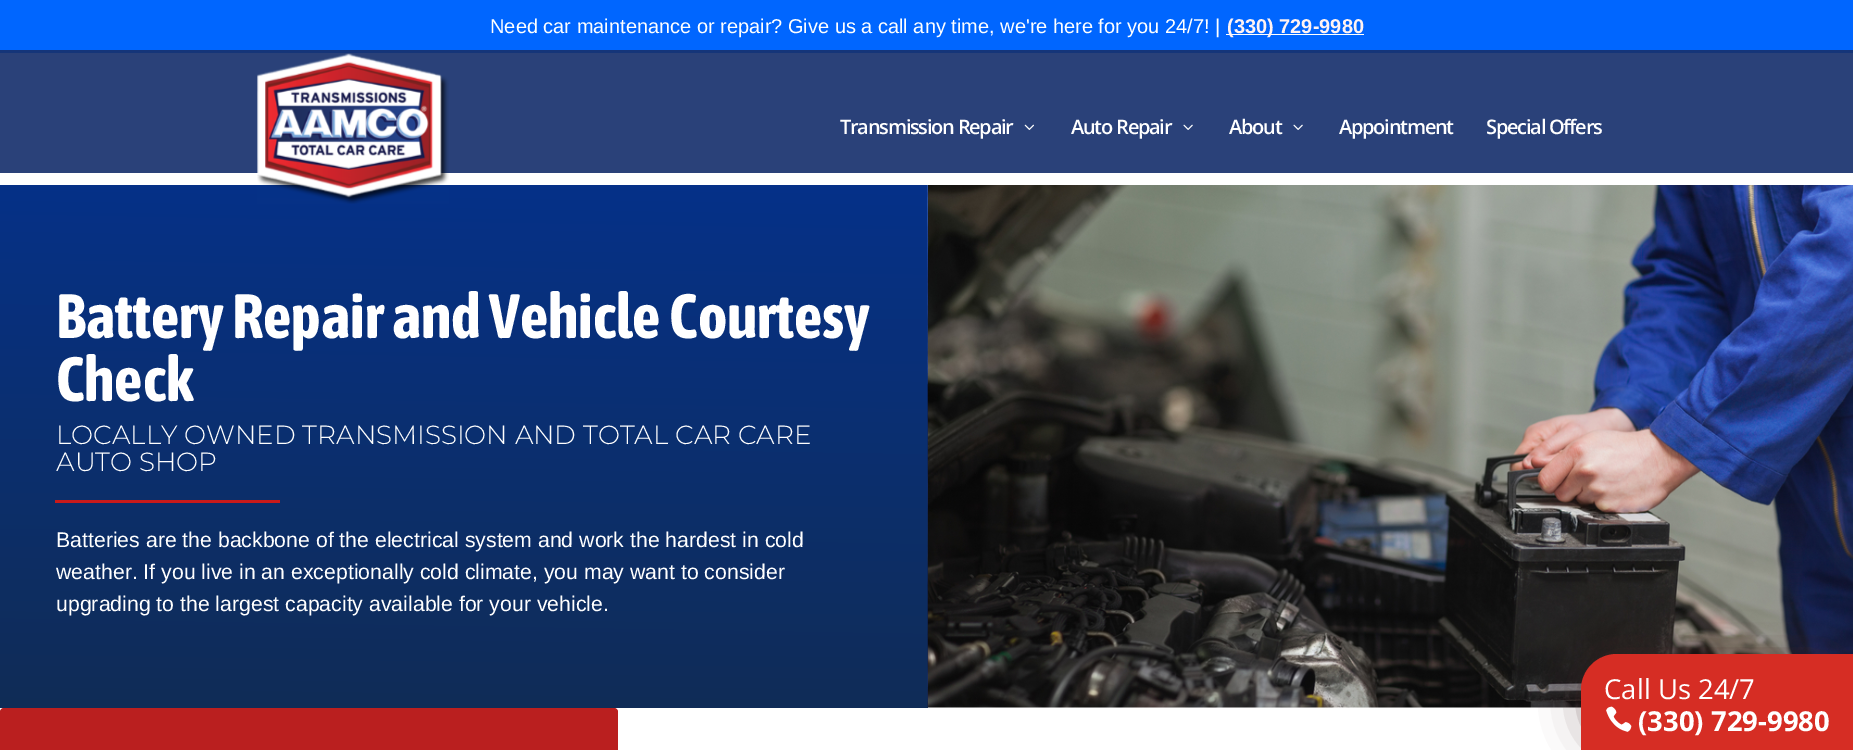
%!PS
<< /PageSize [1853 750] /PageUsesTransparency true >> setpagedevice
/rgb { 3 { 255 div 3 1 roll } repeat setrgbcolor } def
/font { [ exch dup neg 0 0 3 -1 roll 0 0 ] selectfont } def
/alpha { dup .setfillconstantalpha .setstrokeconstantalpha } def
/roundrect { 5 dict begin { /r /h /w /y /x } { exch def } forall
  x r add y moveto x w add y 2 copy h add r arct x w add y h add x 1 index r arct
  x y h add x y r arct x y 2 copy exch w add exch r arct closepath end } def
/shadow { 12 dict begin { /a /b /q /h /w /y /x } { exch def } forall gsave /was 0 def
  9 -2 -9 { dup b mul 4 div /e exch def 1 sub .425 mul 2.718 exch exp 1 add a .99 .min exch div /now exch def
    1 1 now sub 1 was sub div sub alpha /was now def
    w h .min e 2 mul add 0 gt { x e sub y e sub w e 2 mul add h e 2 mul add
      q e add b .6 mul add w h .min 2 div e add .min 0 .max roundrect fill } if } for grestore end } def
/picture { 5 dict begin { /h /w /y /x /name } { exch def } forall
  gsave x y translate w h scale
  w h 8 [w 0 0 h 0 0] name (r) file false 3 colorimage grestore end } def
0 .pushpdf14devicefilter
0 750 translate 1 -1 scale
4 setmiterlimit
255 255 255 rgb
0 0 1853 750 rectfill
[
  [0 53 1853 120 42 65 121]
  [0 0 1853 50 0 102 255]
  [0 50 1853 3 21 53 121]
  [1226 34 138 1 255 255 255]
] { aload pop rgb rectfill } forall
gsave 0 185 moveto 928 185 lineto 928 708 lineto 0 708 lineto closepath clip newpath
<< /ShadingType 2 /ColorSpace /DeviceRGB /Coords [468 177 459 716] /Extend [true true] /Function << /FunctionType 2 /Domain [0 1] /C0 [0.02 0.192 0.537] /C1 [0.063 0.173 0.337] /N 1 >> >> shfill grestore
(img/1.rgb) 257 53 192 151 picture
(img/2.rgb) 1024 124 10 6 picture
(img/3.rgb) 1183 124 10 6 picture
(img/3.rgb) 1293 124 10 6 picture
201 26 26 rgb
55 500 225 3 rectfill
(img/4.rgb) 927 185 926 523 picture
186 31 31 rgb
0 708 618 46 4 roundrect fill
70 37 37 rgb
1594 666 247 72 24 25 0.75 shadow
214 45 36 rgb
1617 654 moveto 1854 654 lineto 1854 750 lineto 1581 750 lineto 1581 690 lineto 1581 670 1597 654 1617 654 curveto closepath fill
(img/5.rgb) 1606 706 26 26 picture
/LiberationSans-Regular 20 font
255 255 255 rgb
490 33 moveto (Need car maintenance or repair? Give us a call any time, we're here for you 24/7! |) show
/LiberationSans-Bold 20 font
255 242 242 rgb
1227 33 moveto (\(330\) 729-9980) show
/OpenSans-SemiBold 20 font
255 255 255 rgb
840 134 moveto -1.25 0 (Transmission Repair) ashow
1071 134 moveto -1.25 0 (Auto Repair) ashow
1229 134 moveto -1.25 0 (About) ashow
1339 134 moveto -1.25 0 (Appointment) ashow
1486 134 moveto -1.25 0 (Special Offers) ashow
/AsapCondensed-Bold 62.5 font
56 338 moveto (Battery Repair and Vehicle Courtesy) show
56 401 moveto (Check) show
/Montserrat-Light 26.25 font
56 444 moveto (LOCALLY OWNED TRANSMISSION AND TOTAL CAR CARE) show
56 471 moveto (AUTO SHOP) show
/LiberationSans-Regular 21.25 font
[
  [(Batteries are the backbone of the electrical system and work the hardest in cold) 56 547]
  [(weather. If you live in an exceptionally cold climate, you may want to consider) 56 579]
  [(upgrading to the largest capacity available for your vehicle.) 56 611]
] { aload pop moveto show } forall
/OpenSans-Regular 27.5 font
1604 699 moveto (Call Us 24/7) show
/OpenSans-Bold 27.5 font
1638 731 moveto (\(330\) 729-9980) show
.poppdf14devicefilter showpage
